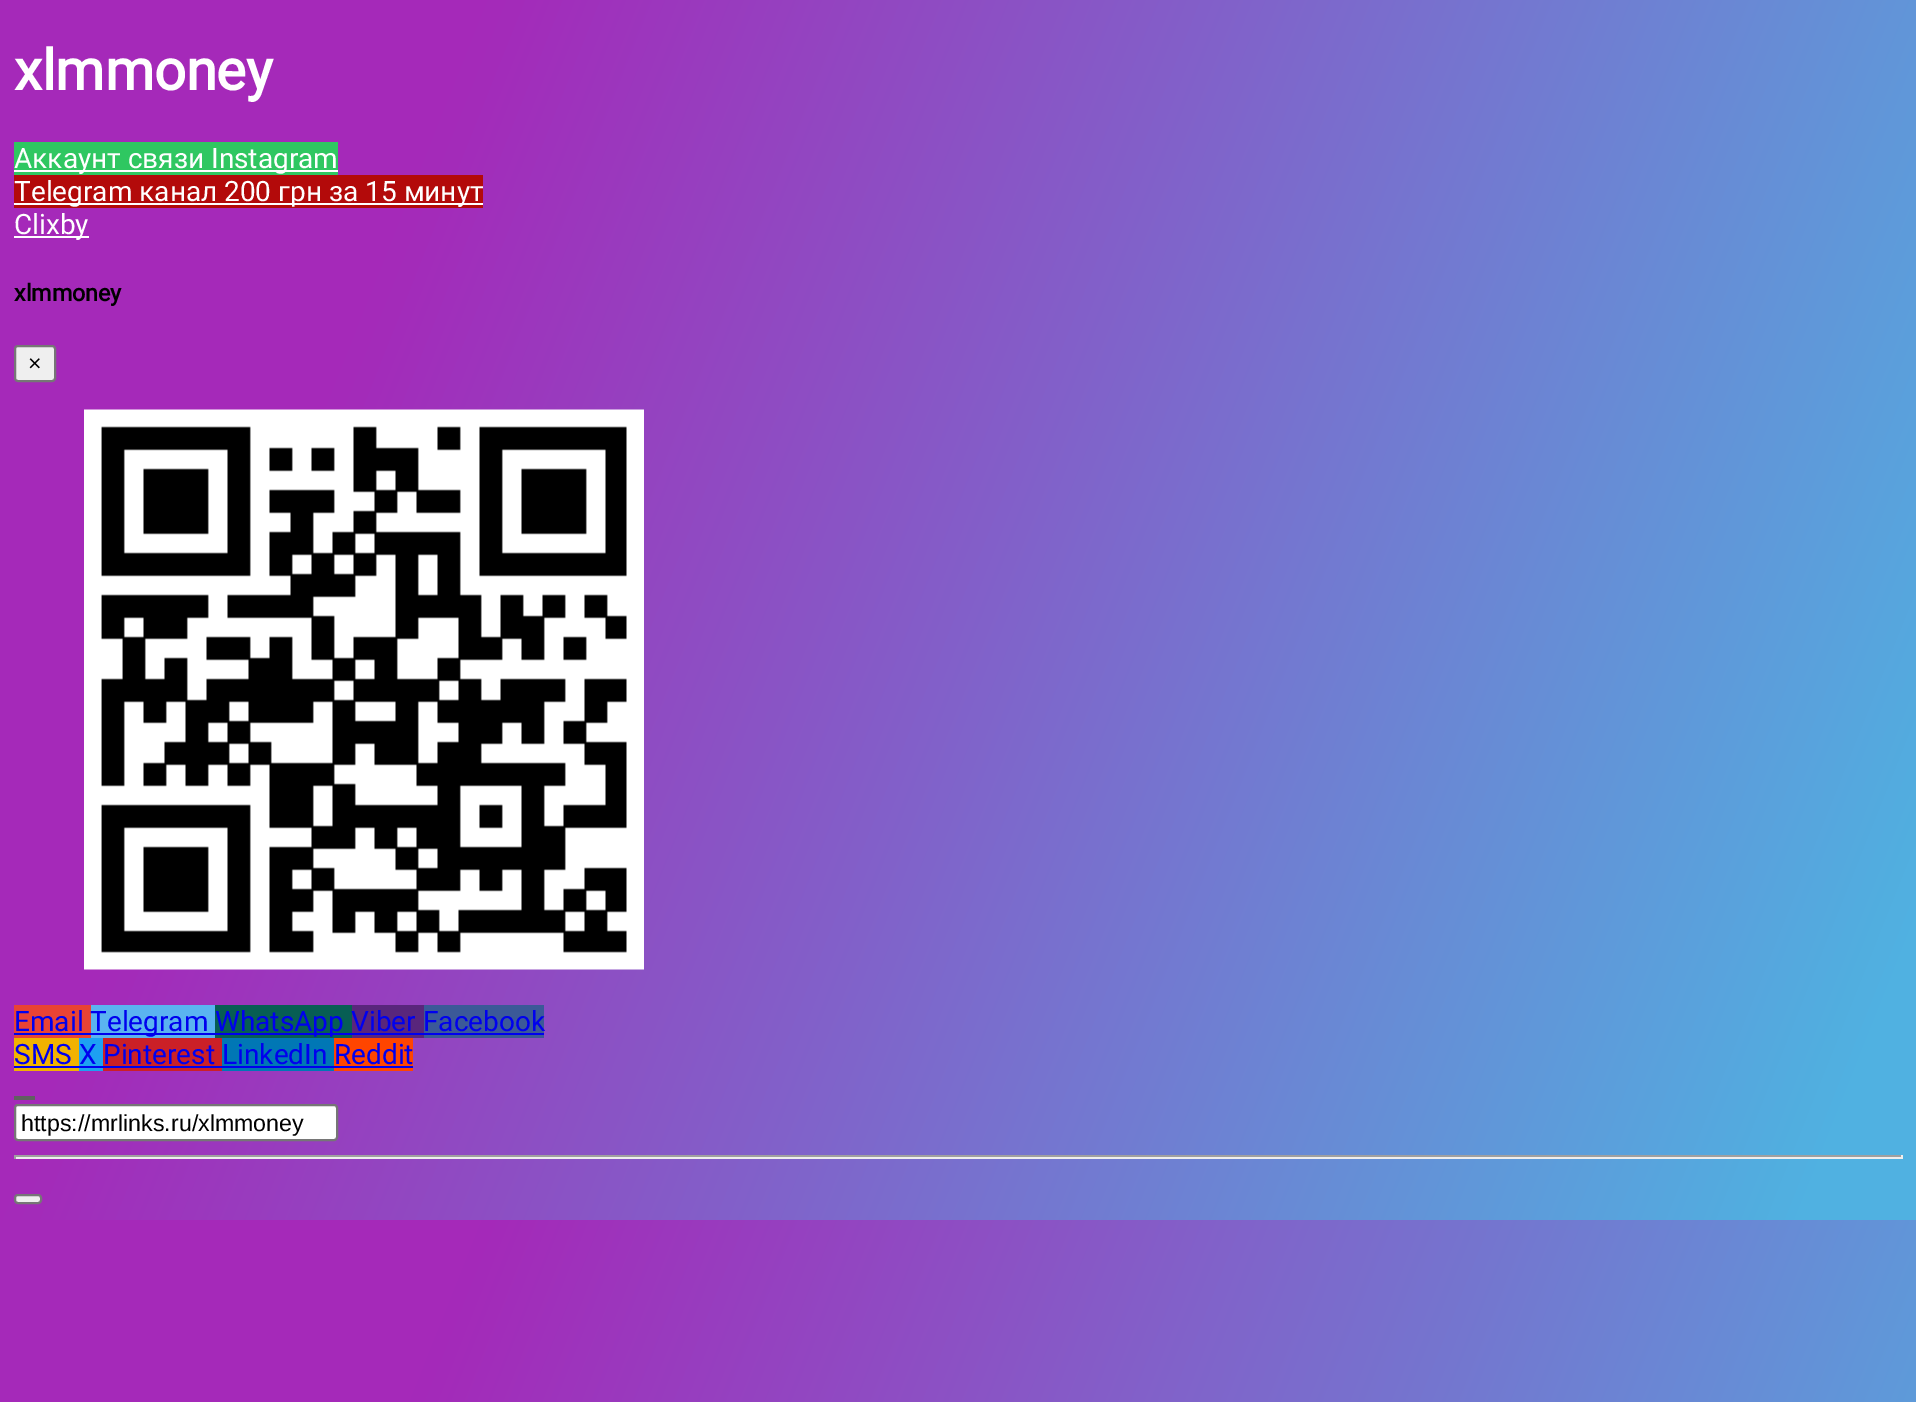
%!PS
<< /PageSize [1916 1402] >> setpagedevice
/rgb { 3 { 255 div 3 1 roll } repeat setrgbcolor } def
/font { [ exch dup neg 0 0 3 -1 roll 0 0 ] selectfont } def
/roundrect { 5 dict begin { /r /h /w /y /x } { exch def } forall
  x r add y moveto x w add y 2 copy h add r arct x w add y h add x 1 index r arct
  x y h add x y r arct x y 2 copy exch w add exch r arct closepath end } def
/picture { 5 dict begin { /h /w /y /x /name } { exch def } forall
  gsave x y translate w h scale
  w h 8 [w 0 0 h 0 0] name (r) file false 3 colorimage grestore end } def
0 1402 translate 1 -1 scale
4 setmiterlimit
255 255 255 rgb
0 0 1916 1402 rectfill
gsave 0 0 moveto 1916 0 lineto 1916 1220 lineto 0 1220 lineto closepath clip newpath
<< /ShadingType 2 /ColorSpace /DeviceRGB /Coords [-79 197 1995 1022] /Extend [true true] /Function << /FunctionType 3 /Domain [0 1] /Functions [<< /FunctionType 2 /Domain [0 1] /C0 [0.647 0.161 0.725] /C1 [0.647 0.161 0.725] /N 1 >> << /FunctionType 2 /Domain [0 1] /C0 [0.647 0.161 0.725] /C1 [0.314 0.694 0.882] /N 1 >> << /FunctionType 2 /Domain [0 1] /C0 [0.314 0.694 0.882] /C1 [0.314 0.694 0.882] /N 1 >>] /Bounds [0.2 0.95] /Encode [0 1 0 1 0 1] >> >> shfill grestore
gsave 0 1220 moveto 1916 1220 lineto 1916 1402 lineto 0 1402 lineto closepath clip newpath
<< /ShadingType 2 /ColorSpace /DeviceRGB /Coords [-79 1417 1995 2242] /Extend [true true] /Function << /FunctionType 3 /Domain [0 1] /Functions [<< /FunctionType 2 /Domain [0 1] /C0 [0.647 0.161 0.725] /C1 [0.647 0.161 0.725] /N 1 >> << /FunctionType 2 /Domain [0 1] /C0 [0.647 0.161 0.725] /C1 [0.314 0.694 0.882] /N 1 >> << /FunctionType 2 /Domain [0 1] /C0 [0.314 0.694 0.882] /C1 [0.314 0.694 0.882] /N 1 >>] /Bounds [0.2 0.95] /Encode [0 1 0 1 0 1] >> >> shfill grestore
[
  [14 142 324 33 47 199 97]
  [14 170 324 2 255 255 255]
  [14 175 469 33 179 10 10]
  [14 203 469 2 255 255 255]
  [14 236 75 2 255 255 255]
] { aload pop rgb rectfill } forall
239 239 239 rgb
15 346 40 35 3 roundrect gsave fill grestore
118 118 118 rgb
2 setlinewidth
stroke
(img/1.rgb) 84 409 560 561 picture
[
  [14 1005 77 33 233 67 53]
  [14 1033 77 2 0 0 238]
  [91 1005 124 33 90 179 240]
  [91 1033 124 2 0 0 238]
  [215 1005 137 33 7 94 84]
  [215 1033 137 2 0 0 238]
  [352 1005 72 33 89 38 124]
  [352 1033 72 2 0 0 238]
  [424 1005 120 33 59 89 152]
  [424 1033 120 2 0 0 238]
  [14 1038 65 33 241 178 0]
  [14 1066 65 2 0 0 238]
  [79 1038 24 33 29 161 242]
  [79 1066 24 2 0 0 238]
  [103 1038 119 33 203 32 39]
  [103 1066 119 2 0 0 238]
  [222 1038 112 33 0 119 181]
  [222 1066 112 2 0 0 238]
  [334 1038 79 33 255 69 0]
  [334 1066 79 2 0 0 238]
  [14 1096 21 4 96 96 96]
] { aload pop rgb rectfill } forall
255 255 255 rgb
15 1105 322 35 3 roundrect gsave fill grestore
118 118 118 rgb
stroke
[
  [14 1155 1888 2 159 159 159]
  [1901 1155 2 4 238 238 238]
  [14 1157 1888 2 238 238 238]
  [14 1155 2 4 159 159 159]
] { aload pop rgb rectfill } forall
239 239 239 rgb
15 1195 26 8 3 roundrect gsave fill grestore
118 118 118 rgb
stroke
/Roboto-Bold 56 font
255 255 255 rgb
14 90 moveto (xlmmoney) show
/Roboto-Regular 28 font
[
  [(Аккаунт связи Instagram) 14 168]
  [(Telegram канал 200 грн за 15 минут) 14 201]
  [(Clixby) 14 234]
] { aload pop moveto show } forall
/Roboto-Bold 23.25 font
0 0 0 rgb
14 301 moveto (xlmmoney) show
/LiberationSans-Regular 23.25 font
28 371 moveto (×) show
/Roboto-Regular 28 font
0 0 238 rgb
[
  [(Email) 14 1031]
  [(Telegram) 90 1031]
  [(WhatsApp) 215 1031]
  [(Viber) 351 1031]
  [(Facebook) 423 1031]
  [(SMS) 14 1064]
  [(X) 79 1064]
  [(Pinterest) 103 1064]
  [(LinkedIn) 222 1064]
  [(Reddit) 334 1064]
] { aload pop moveto show } forall
/LiberationSans-Regular 23.25 font
0 0 0 rgb
21 1131 moveto (https://mrlinks.ru/xlmmoney) show
showpage
